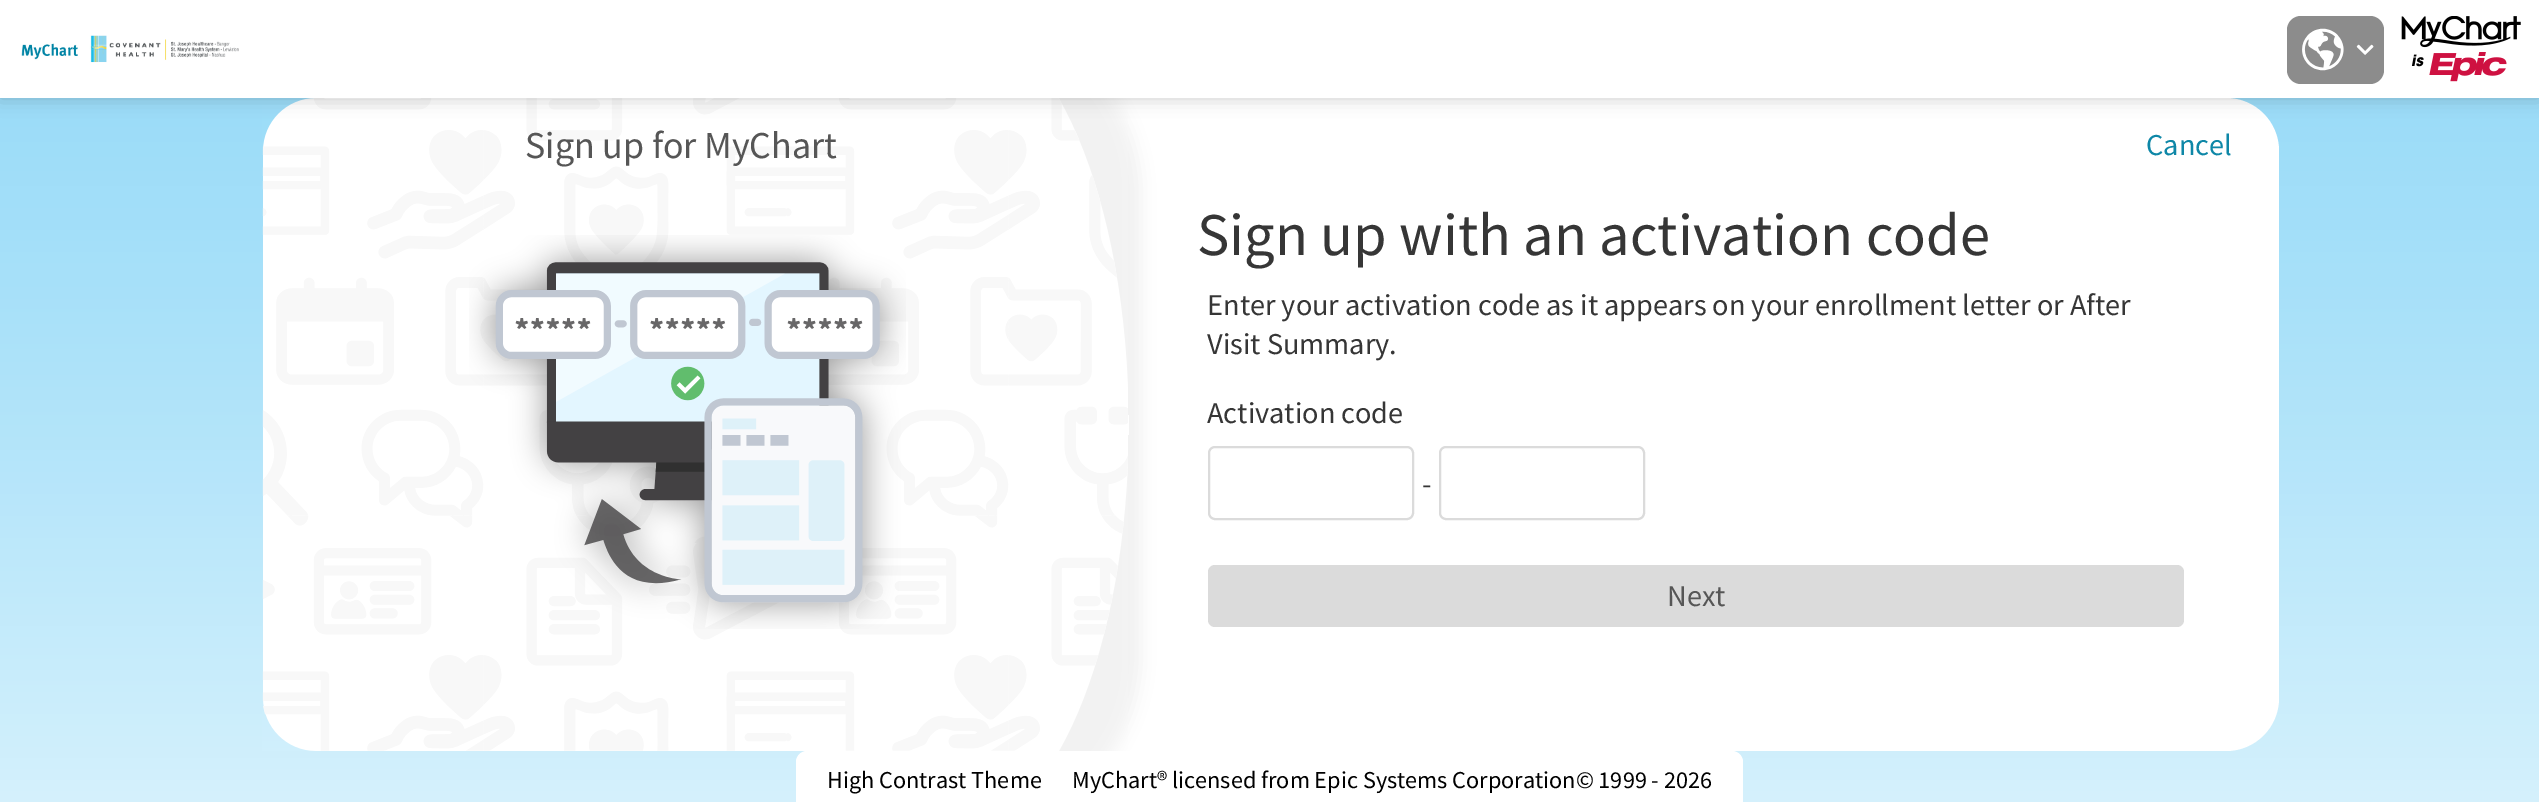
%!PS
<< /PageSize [2539 802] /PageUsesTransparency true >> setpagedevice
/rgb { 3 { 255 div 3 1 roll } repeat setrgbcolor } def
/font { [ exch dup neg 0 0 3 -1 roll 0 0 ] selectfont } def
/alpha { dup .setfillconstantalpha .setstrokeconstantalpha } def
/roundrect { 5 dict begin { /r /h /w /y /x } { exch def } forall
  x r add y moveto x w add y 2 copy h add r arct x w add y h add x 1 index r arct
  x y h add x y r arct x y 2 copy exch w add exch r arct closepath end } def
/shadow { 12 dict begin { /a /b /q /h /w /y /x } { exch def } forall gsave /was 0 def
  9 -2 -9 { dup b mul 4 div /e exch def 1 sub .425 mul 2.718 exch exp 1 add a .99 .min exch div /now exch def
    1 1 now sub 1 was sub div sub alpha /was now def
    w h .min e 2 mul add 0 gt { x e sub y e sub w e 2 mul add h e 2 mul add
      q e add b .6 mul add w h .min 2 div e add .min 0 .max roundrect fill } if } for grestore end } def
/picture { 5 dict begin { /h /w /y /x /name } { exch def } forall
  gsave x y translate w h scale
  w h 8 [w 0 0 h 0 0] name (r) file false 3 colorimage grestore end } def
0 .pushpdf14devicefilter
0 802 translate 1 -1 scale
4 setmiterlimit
255 255 255 rgb
0 0 2539 802 rectfill
gsave 0 98 moveto 2539 98 lineto 2539 802 lineto 0 802 lineto closepath clip newpath
<< /ShadingType 2 /ColorSpace /DeviceRGB /Coords [1270 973 1270 -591] /Extend [true true] /Function << /FunctionType 3 /Domain [0 1] /Functions [<< /FunctionType 2 /Domain [0 1] /C0 [0.91 0.969 0.992] /C1 [0.827 0.941 0.988] /N 1 >> << /FunctionType 2 /Domain [0 1] /C0 [0.827 0.941 0.988] /C1 [0.729 0.906 0.98] /N 1 >> << /FunctionType 2 /Domain [0 1] /C0 [0.729 0.906 0.98] /C1 [0.651 0.878 0.976] /N 1 >> << /FunctionType 2 /Domain [0 1] /C0 [0.651 0.878 0.976] /C1 [0.596 0.859 0.973] /N 1 >> << /FunctionType 2 /Domain [0 1] /C0 [0.596 0.859 0.973] /C1 [0.561 0.847 0.969] /N 1 >> << /FunctionType 2 /Domain [0 1] /C0 [0.561 0.847 0.969] /C1 [0.549 0.843 0.969] /N 1 >> << /FunctionType 2 /Domain [0 1] /C0 [0.549 0.843 0.969] /C1 [0.549 0.843 0.969] /N 1 >>] /Bounds [0.12 0.29 0.45 0.59 0.71 0.79] /Encode [0 1 0 1 0 1 0 1 0 1 0 1 0 1] >> >> shfill grestore
263 98 2016 653 53 roundrect fill
807 751 moveto 1732 751 lineto 1738 751 1743 756 1743 762 curveto 1743 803 lineto 796 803 lineto 796 762 lineto 796 756 801 751 807 751 curveto closepath fill
gsave
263 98 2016 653 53 roundrect clip newpath
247 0 moveto 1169 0 lineto 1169 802 lineto 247 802 lineto closepath 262.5 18 moveto 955.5 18 lineto 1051 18 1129 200 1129 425 curveto 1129 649.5 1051 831.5 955.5 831.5 curveto 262.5 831.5 lineto closepath eoclip newpath
0 0 0 rgb
275 18 866 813 173 9 0.05 shadow
grestore
(img/5.rgb) 262 98 866 653 picture
0 0 0 rgb
0 0 2539 98 0 9 0.2 shadow
255 255 255 rgb
0 0 2539 98 rectfill
(img/1.rgb) 21 35 218 28 picture
140 140 140 rgb
2287 16 97 68 14 roundrect fill
(img/2.rgb) 2302 28 42 43 picture
(img/3.rgb) 2356 44 18 11 picture
(img/4.rgb) 2401 16 120 66 picture
(img/6.rgb) 469 235 437 394 picture
219 219 219 rgb
2 setlinewidth
1209 447 204 72 6 roundrect stroke
1440 447 204 72 6 roundrect stroke
1208 565 976 62 7 roundrect fill
/SourceSansPro-Regular 38 font
86 86 86 rgb
525 158 moveto (Sign up for MyChart) show
/SourceSansPro-Regular 30.3 font
14 135 167 rgb
2146 155 moveto (Cancel) show
/SourceSansPro-Regular 60.7 font
54 54 54 rgb
1197 255 moveto (Sign up with an activation code) show
/SourceSansPro-Regular 30.3 font
[
  [(Enter your activation code as it appears on your enrollment letter or After) 1207 315]
  [(Visit Summary.) 1207 354]
  [(Activation code) 1207 423]
  [(-) 1422 494]
] { aload pop moveto show } forall
86 86 86 rgb
1667 606 moveto (Next) show
/SourceSansPro-Regular 24.25 font
0 0 0 rgb
827 788 moveto (High Contrast Theme) show
1072 788 moveto (MyChart® licensed from Epic Systems Corporation© 1999 - 2026) show
.poppdf14devicefilter showpage
